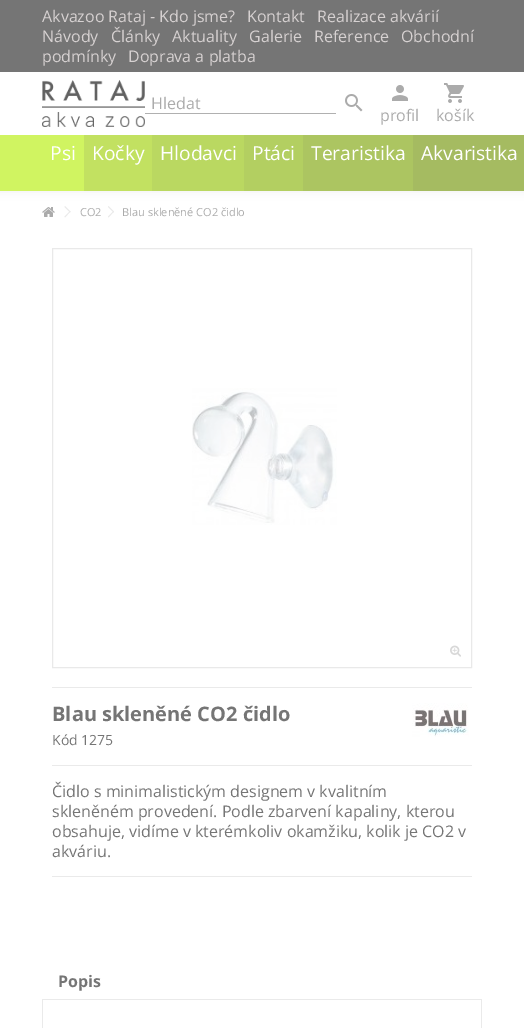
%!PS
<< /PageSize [524 1028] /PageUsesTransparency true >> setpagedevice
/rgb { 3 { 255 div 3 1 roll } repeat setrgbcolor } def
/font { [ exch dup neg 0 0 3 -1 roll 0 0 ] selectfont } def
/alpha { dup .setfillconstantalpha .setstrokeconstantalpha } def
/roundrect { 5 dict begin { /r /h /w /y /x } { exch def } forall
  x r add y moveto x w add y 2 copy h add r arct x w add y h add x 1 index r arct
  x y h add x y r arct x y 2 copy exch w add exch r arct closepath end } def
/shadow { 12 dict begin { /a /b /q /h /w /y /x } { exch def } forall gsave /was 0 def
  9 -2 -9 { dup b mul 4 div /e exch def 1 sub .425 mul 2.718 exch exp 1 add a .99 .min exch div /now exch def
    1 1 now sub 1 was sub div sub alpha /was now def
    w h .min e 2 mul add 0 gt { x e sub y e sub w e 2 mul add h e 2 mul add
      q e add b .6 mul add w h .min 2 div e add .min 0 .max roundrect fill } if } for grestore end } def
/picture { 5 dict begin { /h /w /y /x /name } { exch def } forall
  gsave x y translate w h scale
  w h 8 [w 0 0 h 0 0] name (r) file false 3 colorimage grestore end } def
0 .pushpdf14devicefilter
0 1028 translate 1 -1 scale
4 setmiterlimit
255 255 255 rgb
0 0 524 1028 rectfill
117 117 117 rgb
-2 -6 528 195 0 5 0.2 shadow
255 255 255 rgb
0 72 524 63 rectfill
117 117 117 rgb
0 0 524 72 rectfill
(img/1.rgb) 42 80 103 47 picture
176 176 176 rgb
145 113 191 1 rectfill
(img/2.rgb) 345 94 18 18 picture
(img/3.rgb) 392 85 16 16 picture
(img/4.rgb) 444 83 20 20 picture
gsave 0 135 moveto 84 135 lineto 84 191 lineto 0 191 lineto closepath clip newpath
<< /ShadingType 2 /ColorSpace /DeviceRGB /Coords [0 163 524 163] /Extend [true true] /Function << /FunctionType 3 /Domain [0 1] /Functions [<< /FunctionType 2 /Domain [0 1] /C0 [0.816 0.957 0.38] /C1 [0.816 0.957 0.38] /N 1 >> << /FunctionType 2 /Domain [0 1] /C0 [0.816 0.957 0.38] /C1 [0.62 0.698 0.38] /N 1 >> << /FunctionType 2 /Domain [0 1] /C0 [0.62 0.698 0.38] /C1 [0.62 0.698 0.38] /N 1 >>] /Bounds [0.33 0.67] /Encode [0 1 0 1 0 1] >> >> shfill grestore
[
  [84 135 68 56 194 225 97]
  [152 135 92 56 186 216 97]
  [244 135 59 56 179 207 97]
  [303 135 110 56 172 197 97]
  [413 135 111 56 165 187 97]
] { aload pop rgb rectfill } forall
(img/5.rgb) 42 207 13 10 picture
234 234 234 rgb
65 206 moveto 70.5 211.5 lineto 70 212.5 lineto 64.5 207 lineto closepath fill
70 211 moveto 70.5 211.5 lineto 65 217.5 lineto 64.5 216.5 lineto closepath fill
108.5 206 moveto 114 211.5 lineto 113.5 212.5 lineto 108 207 lineto closepath fill
113.5 211 moveto 114 211.5 lineto 108.5 217.5 lineto 108 216.5 lineto closepath fill
233 233 233 rgb
52.5 248.5 419 419 rectstroke
(img/6.rgb) 192 388 145 137 picture
(img/7.rgb) 450 645 11 12 picture
234 234 234 rgb
52 687 420 1 rectfill
(img/8.rgb) 412 703 57 34 picture
[
  [52 765 420 1 234 234 234]
  [52 876 420 1 234 234 234]
  [42 999 440 1 234 234 234]
  [481 1000 1 28 234 234 234]
  [42 1000 1 28 234 234 234]
] { aload pop rgb rectfill } forall
/OpenSans-Regular 16 font
214 209 209 rgb
[
  [(Akvazoo Rataj - Kdo jsme?) 42 22]
  [(Kontakt) 247 22]
  [(Realizace akvárií) 317 22]
  [(Návody) 42 42]
  [(Články) 111 42]
  [(Aktuality) 172 42]
  [(Galerie) 249 42]
  [(Reference) 314 42]
  [(Obchodní) 401 42]
  [(podmínky) 42 62]
  [(Doprava a platba) 128 62]
] { aload pop moveto show } forall
171 171 171 rgb
[
  [(Hledat) 151 109]
  [(profil) 380 121]
  [(košík) 436 121]
] { aload pop moveto show } forall
/OpenSans-Regular 19.25 font
255 255 255 rgb
[
  [(Psi) 50 160]
  [(Kočky) 92 160]
  [(Hlodavci) 160 160]
  [(Ptáci) 252 160]
  [(Teraristika) 311 160]
  [(Akvaristika) 421 160]
] { aload pop moveto show } forall
/OpenSans-Regular 11 font
171 171 171 rgb
80 216 moveto (CO2) show
122 216 moveto (Blau skleněné CO2 čidlo) show
/OpenSans-Bold 20 font
117 117 117 rgb
52 721 moveto (Blau skleněné CO2 čidlo) show
/OpenSans-Regular 14 font
52 745 moveto (Kód 1275) show
/OpenSans-Regular 16 font
[
  [(Čidlo s minimalistickým designem v kvalitním) 52 797]
  [(skleněném provedení. Podle zbarvení kapaliny, kterou) 52 817]
  [(obsahuje, vidíme v kterémkoliv okamžiku, kolik je CO2 v) 52 837]
  [(akváriu.) 52 857]
] { aload pop moveto show } forall
/OpenSans-Bold 16 font
58 987 moveto (Popis) show
.poppdf14devicefilter showpage
